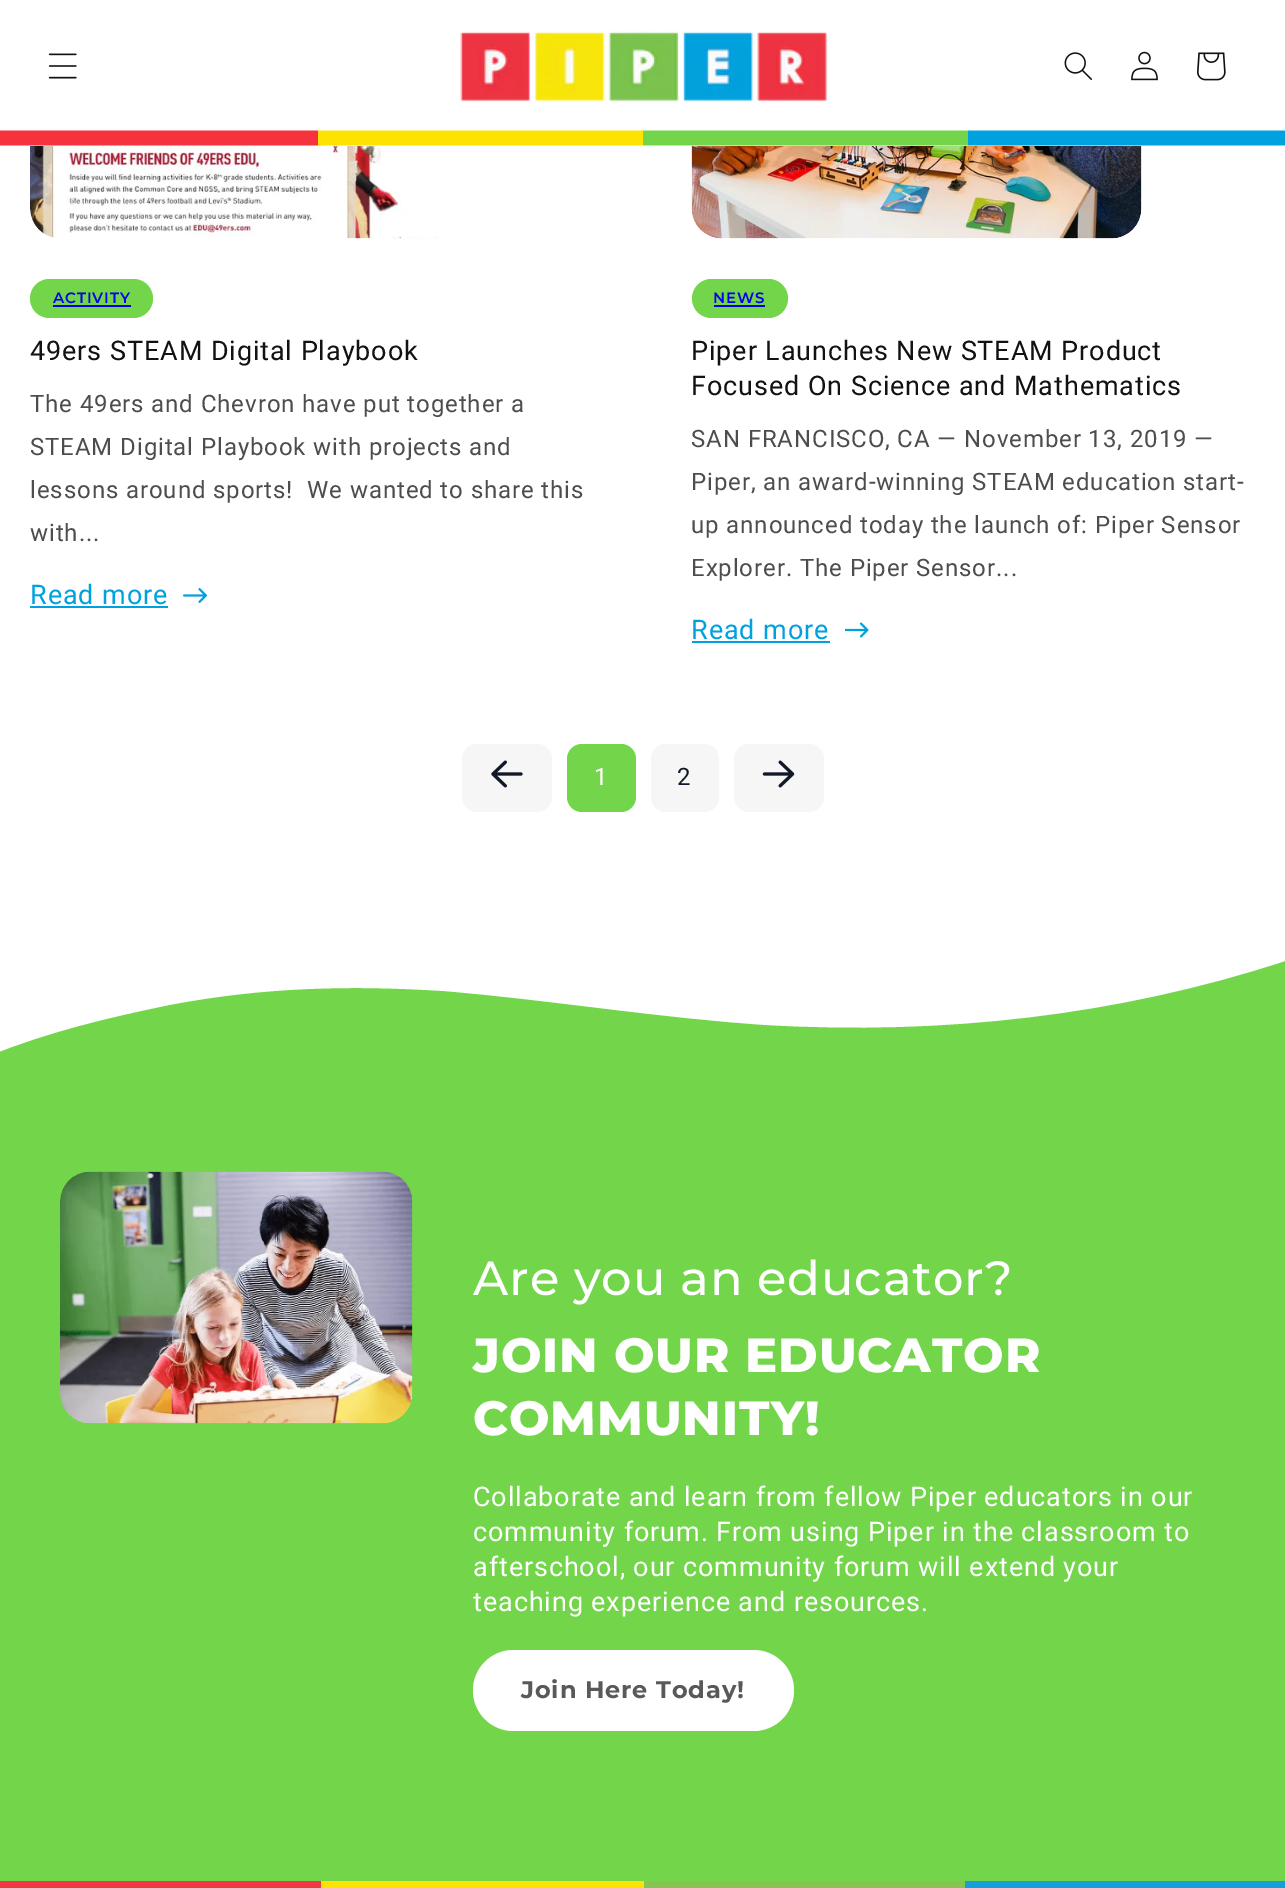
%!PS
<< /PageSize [1285 1888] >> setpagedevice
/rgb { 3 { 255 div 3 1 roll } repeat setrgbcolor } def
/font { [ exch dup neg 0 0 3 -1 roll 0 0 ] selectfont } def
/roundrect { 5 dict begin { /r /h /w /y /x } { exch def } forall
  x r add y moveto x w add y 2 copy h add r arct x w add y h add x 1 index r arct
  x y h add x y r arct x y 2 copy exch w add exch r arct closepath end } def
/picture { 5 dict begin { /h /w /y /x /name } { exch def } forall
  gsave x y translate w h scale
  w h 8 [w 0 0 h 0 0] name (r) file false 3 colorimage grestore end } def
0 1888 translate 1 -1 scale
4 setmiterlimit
255 255 255 rgb
0 0 1285 1888 rectfill
(img/1.rgb) 0 130 1285 16 picture
(img/2.rgb) 48 53 29 26 picture
(img/3.rgb) 460 31 367 71 picture
(img/4.rgb) 1064 52 28 28 picture
(img/5.rgb) 1131 51 27 30 picture
(img/6.rgb) 1197 52 29 29 picture
(img/7.rgb) 30 146 436 93 picture
114 213 74 rgb
30 279 123 39 19.5 roundrect fill
0 0 238 rgb
53 305 78 2 rectfill
0 161 223 rgb
30 606 138 2 rectfill
(img/8.rgb) 183 588 24 15 picture
(img/9.rgb) 691 146 451 93 picture
114 213 74 rgb
692 279 96 39 19.5 roundrect fill
0 0 238 rgb
714 305 51 2 rectfill
0 161 223 rgb
692 641 138 2 rectfill
(img/10.rgb) 845 622 24 16 picture
245 246 245 rgb
462 744 90 68 15 roundrect fill
(img/11.rgb) 491 760 32 28 picture
114 213 74 rgb
567 744 69 68 15 roundrect fill
245 246 245 rgb
651 744 68 68 15 roundrect fill
734 744 90 68 15 roundrect fill
(img/12.rgb) 762 760 33 28 picture
114 213 74 rgb
0 961 1285 920 rectfill
255 255 255 rgb
169 1005 moveto 263 987 351 985 444 991 curveto 552 1000 659 1018 767 1025 curveto 942 1035 1117 1016 1285 961 curveto 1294 958 lineto 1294 932 lineto -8 932 lineto -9 1055 lineto 48 1032 106 1018 169 1005 curveto closepath fill
(img/13.rgb) 60 1171 353 253 picture
473 1650 321 81 40.5 roundrect fill
[
  [0 1881 321 7 239 58 67]
  [321 1881 323 7 252 227 0]
  [644 1881 321 7 134 197 81]
  [965 1881 320 7 20 159 218]
] { aload pop rgb rectfill } forall
/Montserrat-SemiBold 15 font
0 0 238 rgb
53 303 moveto 0.9 0 (ACTIVITY) ashow
/Roboto-Regular 27 font
18 18 18 rgb
30 360 moveto 0.9 0 (49ers STEAM Digital Playbook) ashow
/Roboto-Regular 24 font
77 77 77 rgb
30 412 moveto 0.9 0 (The 49ers and Chevron have put together a) ashow
30 455 moveto 0.9 0 (STEAM Digital Playbook with projects and) ashow
30 498 moveto 0.9 0 (lessons around sports!  We wanted to share this) ashow
30 541 moveto 0.9 0 (with...) ashow
/Roboto-Regular 27 font
0 161 223 rgb
30 604 moveto 0.9 0 (Read more) ashow
/Montserrat-SemiBold 15 font
0 0 238 rgb
713 303 moveto 0.9 0 (NEWS) ashow
/Roboto-Regular 27 font
18 18 18 rgb
691 360 moveto 0.9 0 (Piper Launches New STEAM Product) ashow
691 395 moveto 0.9 0 (Focused On Science and Mathematics) ashow
/Roboto-Regular 24 font
77 77 77 rgb
691 447 moveto 0.9 0 (SAN FRANCISCO, CA — November 13, 2019 —) ashow
691 490 moveto 0.9 0 (Piper, an award-winning STEAM education start-) ashow
691 533 moveto 0.9 0 (up announced today the launch of: Piper Sensor) ashow
691 576 moveto 0.9 0 (Explorer. The Piper Sensor...) ashow
/Roboto-Regular 27 font
0 161 223 rgb
691 639 moveto 0.9 0 (Read more) ashow
/Roboto-Regular 24 font
255 255 255 rgb
594 785 moveto 0.9 0 (1) ashow
17 24 39 rgb
677 785 moveto 0.9 0 (2) ashow
/Montserrat-Medium 48 font
255 255 255 rgb
473 1295 moveto 0.9 0 (Are you an educator?) ashow
/Montserrat-ExtraBold 48 font
473 1372 moveto 0.9 0 (JOIN OUR EDUCATOR) ashow
473 1435 moveto 0.9 0 (COMMUNITY!) ashow
/Roboto-Regular 27 font
473 1506 moveto 0.9 0 (Collaborate and learn from fellow Piper educators in our) ashow
473 1541 moveto 0.9 0 (community forum. From using Piper in the classroom to) ashow
473 1576 moveto 0.9 0 (afterschool, our community forum will extend your) ashow
473 1611 moveto 0.9 0 (teaching experience and resources.) ashow
/Montserrat-Bold 24 font
88 89 91 rgb
521 1698 moveto 0.9 0 (Join Here Today!) ashow
showpage
